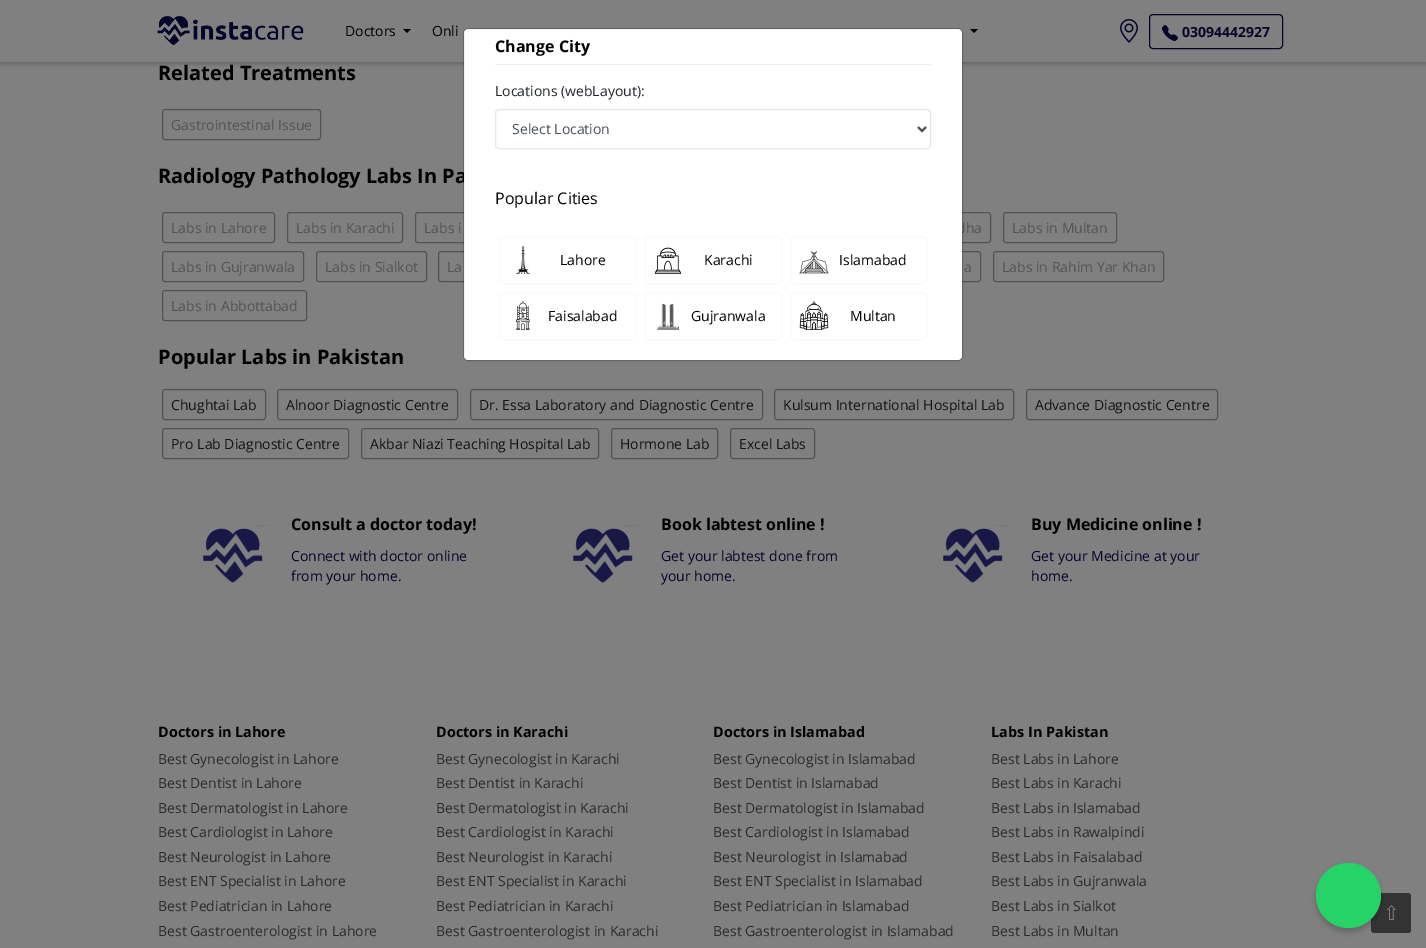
%!PS
<< /PageSize [1426 948] /PageUsesTransparency true >> setpagedevice
/rgb { 3 { 255 div 3 1 roll } repeat setrgbcolor } def
/font { [ exch dup neg 0 0 3 -1 roll 0 0 ] selectfont } def
/alpha { dup .setfillconstantalpha .setstrokeconstantalpha } def
/circle { newpath 0 360 arc closepath } def
/roundrect { 5 dict begin { /r /h /w /y /x } { exch def } forall
  x r add y moveto x w add y 2 copy h add r arct x w add y h add x 1 index r arct
  x y h add x y r arct x y 2 copy exch w add exch r arct closepath end } def
/shadow { 12 dict begin { /a /b /q /h /w /y /x } { exch def } forall gsave /was 0 def
  9 -2 -9 { dup b mul 4 div /e exch def 1 sub .425 mul 2.718 exch exp 1 add a .99 .min exch div /now exch def
    1 1 now sub 1 was sub div sub alpha /was now def
    w h .min e 2 mul add 0 gt { x e sub y e sub w e 2 mul add h e 2 mul add
      q e add b .6 mul add w h .min 2 div e add .min 0 .max roundrect fill } if } for grestore end } def
/picture { 5 dict begin { /h /w /y /x /name } { exch def } forall
  gsave x y translate w h scale
  w h 8 [w 0 0 h 0 0] name (r) file false 3 colorimage grestore end } def
0 .pushpdf14devicefilter
0 948 translate 1 -1 scale
4 setmiterlimit
128 128 128 rgb
0 0 1426 948 rectfill
0 0 0 rgb
0 2 1426 62 0 2 0.2 shadow
128 128 128 rgb
0 0 1426 62 rectfill
(img/1.rgb) 157 16 147 29 picture
0 0 0 rgb
403 29 moveto 411 29 lineto 407 33 lineto closepath fill
970 29 moveto 978 29 lineto 974 33 lineto closepath fill
(img/2.rgb) 1120 19 18 24 picture
4 3 40 rgb
1149.5 14.5 133 34 3.5 roundrect stroke
(img/3.rgb) 1162 25 16 16 picture
83 83 83 rgb
162.5 109.5 158 30 2.5 roundrect stroke
162.5 212.5 112 30 2.5 roundrect stroke
287.5 212.5 115 30 2.5 roundrect stroke
415.5 212.5 134 30 2.5 roundrect stroke
861.5 212.5 129 30 2.5 roundrect stroke
1003.5 212.5 113 30 2.5 roundrect stroke
162.5 251.5 141 30 2.5 roundrect stroke
316.5 251.5 110 30 2.5 roundrect stroke
438.5 251.5 117 30 2.5 roundrect stroke
868.5 251.5 112 30 2.5 roundrect stroke
993.5 251.5 170 30 2.5 roundrect stroke
162.5 290.5 144 30 2.5 roundrect stroke
162.5 389.5 103 30 2.5 roundrect stroke
277.5 389.5 180 30 2.5 roundrect stroke
470.5 389.5 292 30 2.5 roundrect stroke
774.5 389.5 239 30 2.5 roundrect stroke
1026.5 389.5 191 30 2.5 roundrect stroke
162.5 428.5 186 30 2.5 roundrect stroke
361.5 428.5 237 30 2.5 roundrect stroke
611.5 428.5 106 30 2.5 roundrect stroke
730.5 428.5 84 30 2.5 roundrect stroke
(img/10.rgb) 203 525 65 58 picture
(img/10.rgb) 573 525 65 58 picture
(img/10.rgb) 943 525 65 58 picture
51 51 51 rgb
1371 893 40 40 3 roundrect fill
0 0 0 rgb
1316 867 65 65 32.5 3 0.2 shadow
37 211 102 rgb
1348.5 895.5 32.5 circle fill
/OpenSans-Regular 14 font
0 0 0 rgb
345 36 moveto (Doctors) show
432 36 moveto (Onli) show
/OpenSans-Bold 14 font
5 3 40 rgb
1182 37 moveto (03094442927) show
/OpenSans-Bold 20 font
0 0 0 rgb
158 80 moveto (Related Treatments) show
/OpenSans-Regular 14 font
83 83 83 rgb
171 130 moveto (Gastrointestinal Issue) show
/OpenSans-Bold 20 font
0 0 0 rgb
158 183 moveto (Radiology Pathology Labs In Pa) show
/OpenSans-Regular 14 font
83 83 83 rgb
[
  [(Labs in Lahore) 171 233]
  [(Labs in Karachi) 296 233]
  [(Labs i) 424 233]
  [(dha) 957 233]
] { aload pop moveto show } forall
255 255 255 rgb
464 29 498 331 4 roundrect fill
0.2 alpha
0 0 0 rgb
463.5 28.5 499 332 4.5 roundrect stroke
1 alpha
248 249 250 rgb
790.5 292.5 136 47 3.5 roundrect stroke
0 0 0 rgb
850 321 moveto (Multan) show
(img/9.rgb) 799 301 30 29 picture
248 249 250 rgb
644.5 292.5 137 47 3.5 roundrect stroke
0 0 0 rgb
691 321 moveto (Gujranwala) show
(img/8.rgb) 657 303 23 27 picture
248 249 250 rgb
499.5 292.5 136 47 3.5 roundrect stroke
0 0 0 rgb
548 321 moveto (Faisalabad) show
(img/7.rgb) 516 301 14 29 picture
248 249 250 rgb
790.5 236.5 136 47 3.5 roundrect stroke
0 0 0 rgb
839 265 moveto (Islamabad) show
(img/6.rgb) 799 251 30 23 picture
248 249 250 rgb
644.5 236.5 137 47 3.5 roundrect stroke
0 0 0 rgb
704 265 moveto (Karachi) show
(img/5.rgb) 654 247 27 27 picture
248 249 250 rgb
499.5 236.5 136 47 3.5 roundrect stroke
0 0 0 rgb
560 265 moveto (Lahore) show
(img/4.rgb) 516 245 14 29 picture
225 232 237 rgb
495.5 109.5 435 39 3.5 roundrect stroke
73 80 87 rgb
512 134 moveto (Select Location) show
33 37 41 rgb
495 96 moveto (Locations \(webLayout\):) show
73 80 87 rgb
2 setlinewidth
918 127 moveto 922 131 lineto 926 127 lineto stroke
/OpenSans-Regular 16 font
0 0 0 rgb
495 204 moveto (Popular Cities) show
/OpenSans-Bold 16 font
495 52 moveto (Change City) show
237 237 237 rgb
495 64 436 1 rectfill
/OpenSans-Regular 14 font
83 83 83 rgb
[
  [(Labs in Multan) 1012 233]
  [(Labs in Gujranwala) 171 272]
  [(Labs in Sialkot) 325 272]
  [(La) 447 272]
  [(a) 964 272]
  [(Labs in Rahim Yar Khan) 1002 272]
  [(Labs in Abbottabad) 171 311]
] { aload pop moveto show } forall
/OpenSans-Bold 20 font
0 0 0 rgb
158 364 moveto (Popular Labs in Pakistan) show
/OpenSans-Regular 14 font
17 19 21 rgb
[
  [(Chughtai Lab) 171 410]
  [(Alnoor Diagnostic Centre) 286 410]
  [(Dr. Essa Laboratory and Diagnostic Centre) 479 410]
  [(Kulsum International Hospital Lab) 783 410]
  [(Advance Diagnostic Centre) 1035 410]
  [(Pro Lab Diagnostic Centre) 171 449]
  [(Akbar Niazi Teaching Hospital Lab) 370 449]
  [(Hormone Lab) 620 449]
  [(Excel Labs) 739 449]
] { aload pop moveto show } forall
/OpenSans-Bold 16 font
0 0 0 rgb
291 530 moveto (Consult a doctor today!) show
/OpenSans-Regular 14 font
5 3 40 rgb
291 561 moveto (Connect with doctor online) show
291 581 moveto (from your home.) show
/OpenSans-Bold 16 font
0 0 0 rgb
661 530 moveto (Book labtest online !) show
/OpenSans-Regular 14 font
5 3 40 rgb
661 561 moveto (Get your labtest done from) show
661 581 moveto (your home.) show
/OpenSans-Bold 16 font
0 0 0 rgb
1031 530 moveto (Buy Medicine online !) show
/OpenSans-Regular 14 font
5 3 40 rgb
1031 561 moveto (Get your Medicine at your) show
1031 581 moveto (home.) show
/OpenSans-Bold 14.4 font
0 0 0 rgb
158 737 moveto (Doctors in Lahore) show
/OpenSans-Regular 14 font
43 43 43 rgb
[
  [(Best Gynecologist in Lahore) 158 764]
  [(Best Dentist in Lahore) 158 788]
  [(Best Dermatologist in Lahore) 158 813]
  [(Best Cardiologist in Lahore) 158 837]
  [(Best Neurologist in Lahore) 158 862]
  [(Best ENT Specialist in Lahore) 158 886]
  [(Best Pediatrician in Lahore) 158 911]
  [(Best Gastroenterologist in Lahore) 158 936]
] { aload pop moveto show } forall
/OpenSans-Bold 14.4 font
0 0 0 rgb
436 737 moveto (Doctors in Karachi) show
/OpenSans-Regular 14 font
43 43 43 rgb
[
  [(Best Gynecologist in Karachi) 436 764]
  [(Best Dentist in Karachi) 436 788]
  [(Best Dermatologist in Karachi) 436 813]
  [(Best Cardiologist in Karachi) 436 837]
  [(Best Neurologist in Karachi) 436 862]
  [(Best ENT Specialist in Karachi) 436 886]
  [(Best Pediatrician in Karachi) 436 911]
  [(Best Gastroenterologist in Karachi) 436 936]
] { aload pop moveto show } forall
/OpenSans-Bold 14.4 font
0 0 0 rgb
713 737 moveto (Doctors in Islamabad) show
/OpenSans-Regular 14 font
43 43 43 rgb
[
  [(Best Gynecologist in Islamabad) 713 764]
  [(Best Dentist in Islamabad) 713 788]
  [(Best Dermatologist in Islamabad) 713 813]
  [(Best Cardiologist in Islamabad) 713 837]
  [(Best Neurologist in Islamabad) 713 862]
  [(Best ENT Specialist in Islamabad) 713 886]
  [(Best Pediatrician in Islamabad) 713 911]
  [(Best Gastroenterologist in Islamabad) 713 936]
] { aload pop moveto show } forall
/OpenSans-Bold 14.4 font
0 0 0 rgb
991 737 moveto (Labs In Pakistan) show
/OpenSans-Regular 14 font
43 43 43 rgb
[
  [(Best Labs in Lahore) 991 764]
  [(Best Labs in Karachi) 991 788]
  [(Best Labs in Islamabad) 991 813]
  [(Best Labs in Rawalpindi) 991 837]
  [(Best Labs in Faisalabad) 991 862]
  [(Best Labs in Gujranwala) 991 886]
  [(Best Labs in Sialkot) 991 911]
  [(Best Labs in Multan) 991 936]
] { aload pop moveto show } forall
/DejaVuSans-Regular 20 font
128 128 128 rgb
1383 920 moveto (⇧) show
.poppdf14devicefilter showpage
